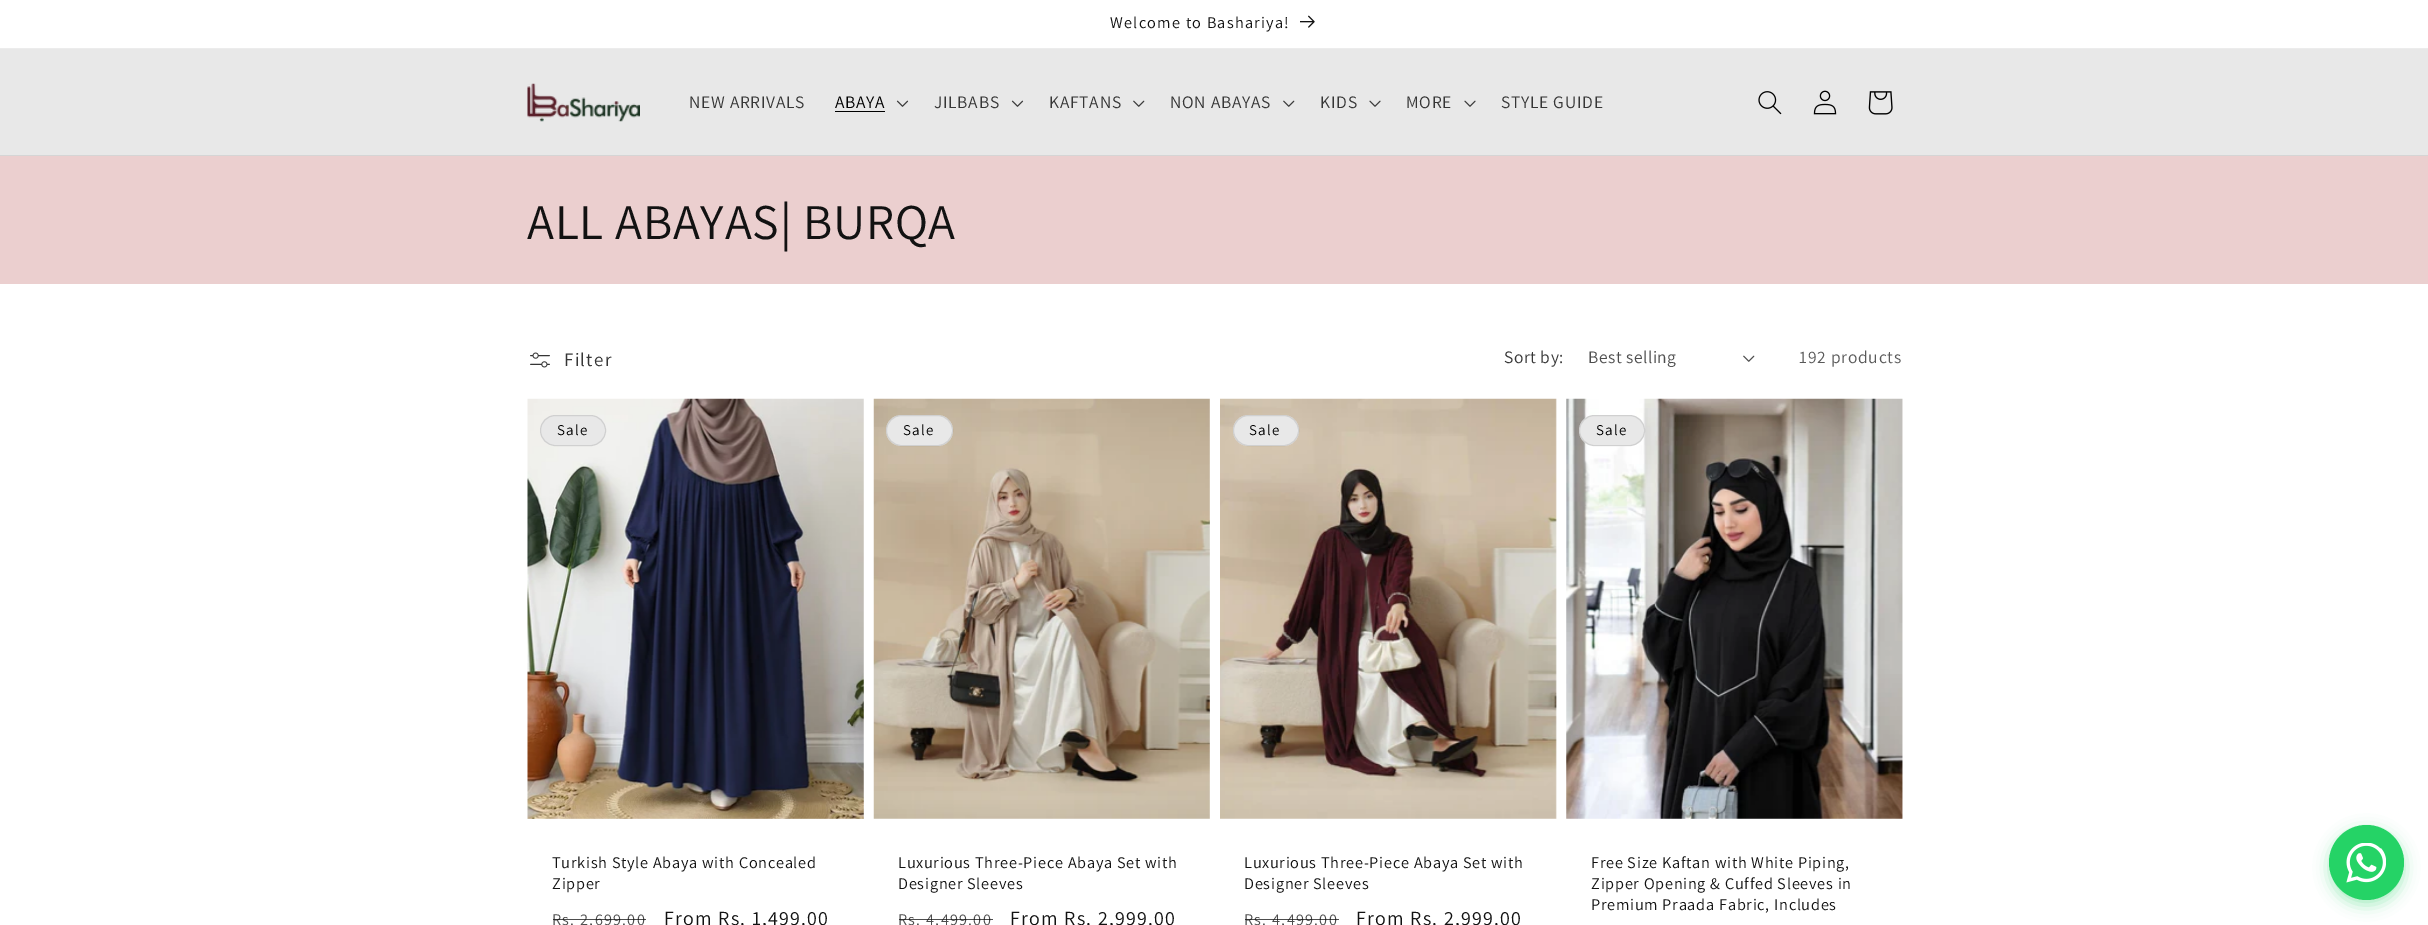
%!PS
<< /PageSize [2428 925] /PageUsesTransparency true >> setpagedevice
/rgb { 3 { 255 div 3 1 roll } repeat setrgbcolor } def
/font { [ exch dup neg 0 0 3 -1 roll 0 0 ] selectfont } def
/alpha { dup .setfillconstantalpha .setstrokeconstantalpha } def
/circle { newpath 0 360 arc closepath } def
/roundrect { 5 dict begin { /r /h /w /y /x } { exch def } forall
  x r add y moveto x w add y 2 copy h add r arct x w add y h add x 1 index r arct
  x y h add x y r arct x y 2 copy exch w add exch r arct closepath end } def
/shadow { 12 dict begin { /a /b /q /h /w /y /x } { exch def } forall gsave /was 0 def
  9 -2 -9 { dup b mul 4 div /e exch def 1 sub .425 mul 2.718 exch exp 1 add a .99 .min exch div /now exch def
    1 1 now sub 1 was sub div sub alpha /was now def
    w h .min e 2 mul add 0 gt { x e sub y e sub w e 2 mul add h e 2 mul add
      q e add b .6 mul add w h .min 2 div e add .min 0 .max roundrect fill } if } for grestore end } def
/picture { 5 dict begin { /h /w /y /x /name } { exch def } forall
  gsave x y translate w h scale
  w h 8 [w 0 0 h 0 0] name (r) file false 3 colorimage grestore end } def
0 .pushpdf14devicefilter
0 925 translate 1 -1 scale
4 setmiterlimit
255 255 255 rgb
0 0 2428 925 rectfill
236 236 236 rgb
0 48 2428 1 rectfill
(img/1.rgb) 1300 15 15 13 picture
232 232 232 rgb
0 49 2428 106 rectfill
213 213 213 rgb
0 155 2428 1 rectfill
(img/2.rgb) 527 83 113 39 picture
0 0 0 rgb
835 111 50 1 rectfill
(img/3.rgb) 896 100 13 7 picture
(img/3.rgb) 1011 100 13 7 picture
(img/4.rgb) 1133 100 12 7 picture
(img/4.rgb) 1283 100 12 7 picture
(img/5.rgb) 1369 100 12 7 picture
(img/5.rgb) 1464 100 12 7 picture
(img/6.rgb) 1758 91 24 24 picture
(img/7.rgb) 1813 90 24 25 picture
(img/8.rgb) 1868 91 25 24 picture
235 207 207 rgb
0 156 2428 128 rectfill
(img/9.rgb) 530 352 20 16 picture
(img/10.rgb) 1743 355 12 7 picture
(img/11.rgb) 527 398 337 421 picture
232 232 232 rgb
540 415 66 31 15.5 roundrect fill
0.1 alpha
0 0 0 rgb
540.5 415.5 65 30 15 roundrect stroke
1 alpha
(img/12.rgb) 873 398 337 421 picture
232 232 232 rgb
886 415 67 31 15.5 roundrect fill
0.1 alpha
0 0 0 rgb
886.5 415.5 66 30 15 roundrect stroke
1 alpha
(img/13.rgb) 1220 398 337 421 picture
232 232 232 rgb
1233 415 66 31 15.5 roundrect fill
0.1 alpha
0 0 0 rgb
1233.5 415.5 65 30 15 roundrect stroke
1 alpha
(img/14.rgb) 1566 398 337 421 picture
232 232 232 rgb
1579 415 66 31 15.5 roundrect fill
0.1 alpha
0 0 0 rgb
1579.5 415.5 65 30 15 roundrect stroke
1 alpha
37 211 102 rgb
2329 830 75 75 37.5 7.5 0.4 shadow
2366.5 862.5 37.5 circle fill
(img/15.rgb) 2346 843 40 40 picture
/Assistant-Regular 16.25 font
18 18 18 rgb
1110 28 moveto 1.25 0 (Welcome to Bashariya!) ashow
/Assistant-Regular 17.5 font
54 54 54 rgb
689 108 moveto 0.75 0 (NEW ARRIVALS) ashow
0 0 0 rgb
835 108 moveto 0.75 0 (ABAYA) ashow
54 54 54 rgb
934 108 moveto 0.75 0 (JILBABS) ashow
1049 108 moveto 0.75 0 (KAFTANS) ashow
1170 108 moveto 0.75 0 (NON ABAYAS) ashow
1320 108 moveto 0.75 0 (KIDS) ashow
1406 108 moveto 0.75 0 (MORE) ashow
1501 108 moveto 0.75 0 (STYLE GUIDE) ashow
/Assistant-Regular 50 font
18 18 18 rgb
527 239 moveto 0.75 0 (ALL ABAYAS| BURQA) ashow
/Assistant-Regular 19 font
54 54 54 rgb
564 366 moveto 1.25 0 (Filter) ashow
/Assistant-Regular 17.5 font
1504 363 moveto 0.5 0 (Sort by:) ashow
77 77 77 rgb
1588 363 moveto 0.5 0 (Best selling) ashow
89 89 89 rgb
1799 363 moveto 0.75 0 (192 products) ashow
/Assistant-Regular 15 font
0 0 0 rgb
557 435 moveto 1.25 0 (Sale) ashow
/Assistant-Regular 16.25 font
18 18 18 rgb
552 868 moveto 0.75 0 (Turkish Style Abaya with Concealed) ashow
552 889 moveto 0.75 0 (Zipper) ashow
77 77 77 rgb
552 925 moveto 1.25 0 (Rs. 2,699.00) ashow
0.75 alpha
18 18 18 rgb
553 919 93 1 rectfill
/Assistant-Regular 20 font
1 alpha
664 925 moveto 1.25 0 (From Rs. 1,499.00) ashow
/Assistant-Regular 15 font
0 0 0 rgb
903 435 moveto 1.25 0 (Sale) ashow
/Assistant-Regular 16.25 font
18 18 18 rgb
898 868 moveto 0.75 0 (Luxurious Three-Piece Abaya Set with) ashow
898 889 moveto 0.75 0 (Designer Sleeves) ashow
77 77 77 rgb
898 925 moveto 1.25 0 (Rs. 4,499.00) ashow
0.75 alpha
18 18 18 rgb
899 919 94 1 rectfill
/Assistant-Regular 20 font
1 alpha
1010 925 moveto 1.25 0 (From Rs. 2,999.00) ashow
/Assistant-Regular 15 font
0 0 0 rgb
1249 435 moveto 1.25 0 (Sale) ashow
/Assistant-Regular 16.25 font
18 18 18 rgb
1244 868 moveto 0.75 0 (Luxurious Three-Piece Abaya Set with) ashow
1244 889 moveto 0.75 0 (Designer Sleeves) ashow
77 77 77 rgb
1244 925 moveto 1.25 0 (Rs. 4,499.00) ashow
0.75 alpha
18 18 18 rgb
1245 919 94 1 rectfill
/Assistant-Regular 20 font
1 alpha
1356 925 moveto 1.25 0 (From Rs. 2,999.00) ashow
/Assistant-Regular 15 font
0 0 0 rgb
1596 435 moveto 1.25 0 (Sale) ashow
/Assistant-Regular 16.25 font
18 18 18 rgb
1591 868 moveto 0.75 0 (Free Size Kaftan with White Piping,) ashow
1591 889 moveto 0.75 0 (Zipper Opening & Cuffed Sleeves in) ashow
1591 910 moveto 0.75 0 (Premium Praada Fabric, Includes) ashow
.poppdf14devicefilter showpage
